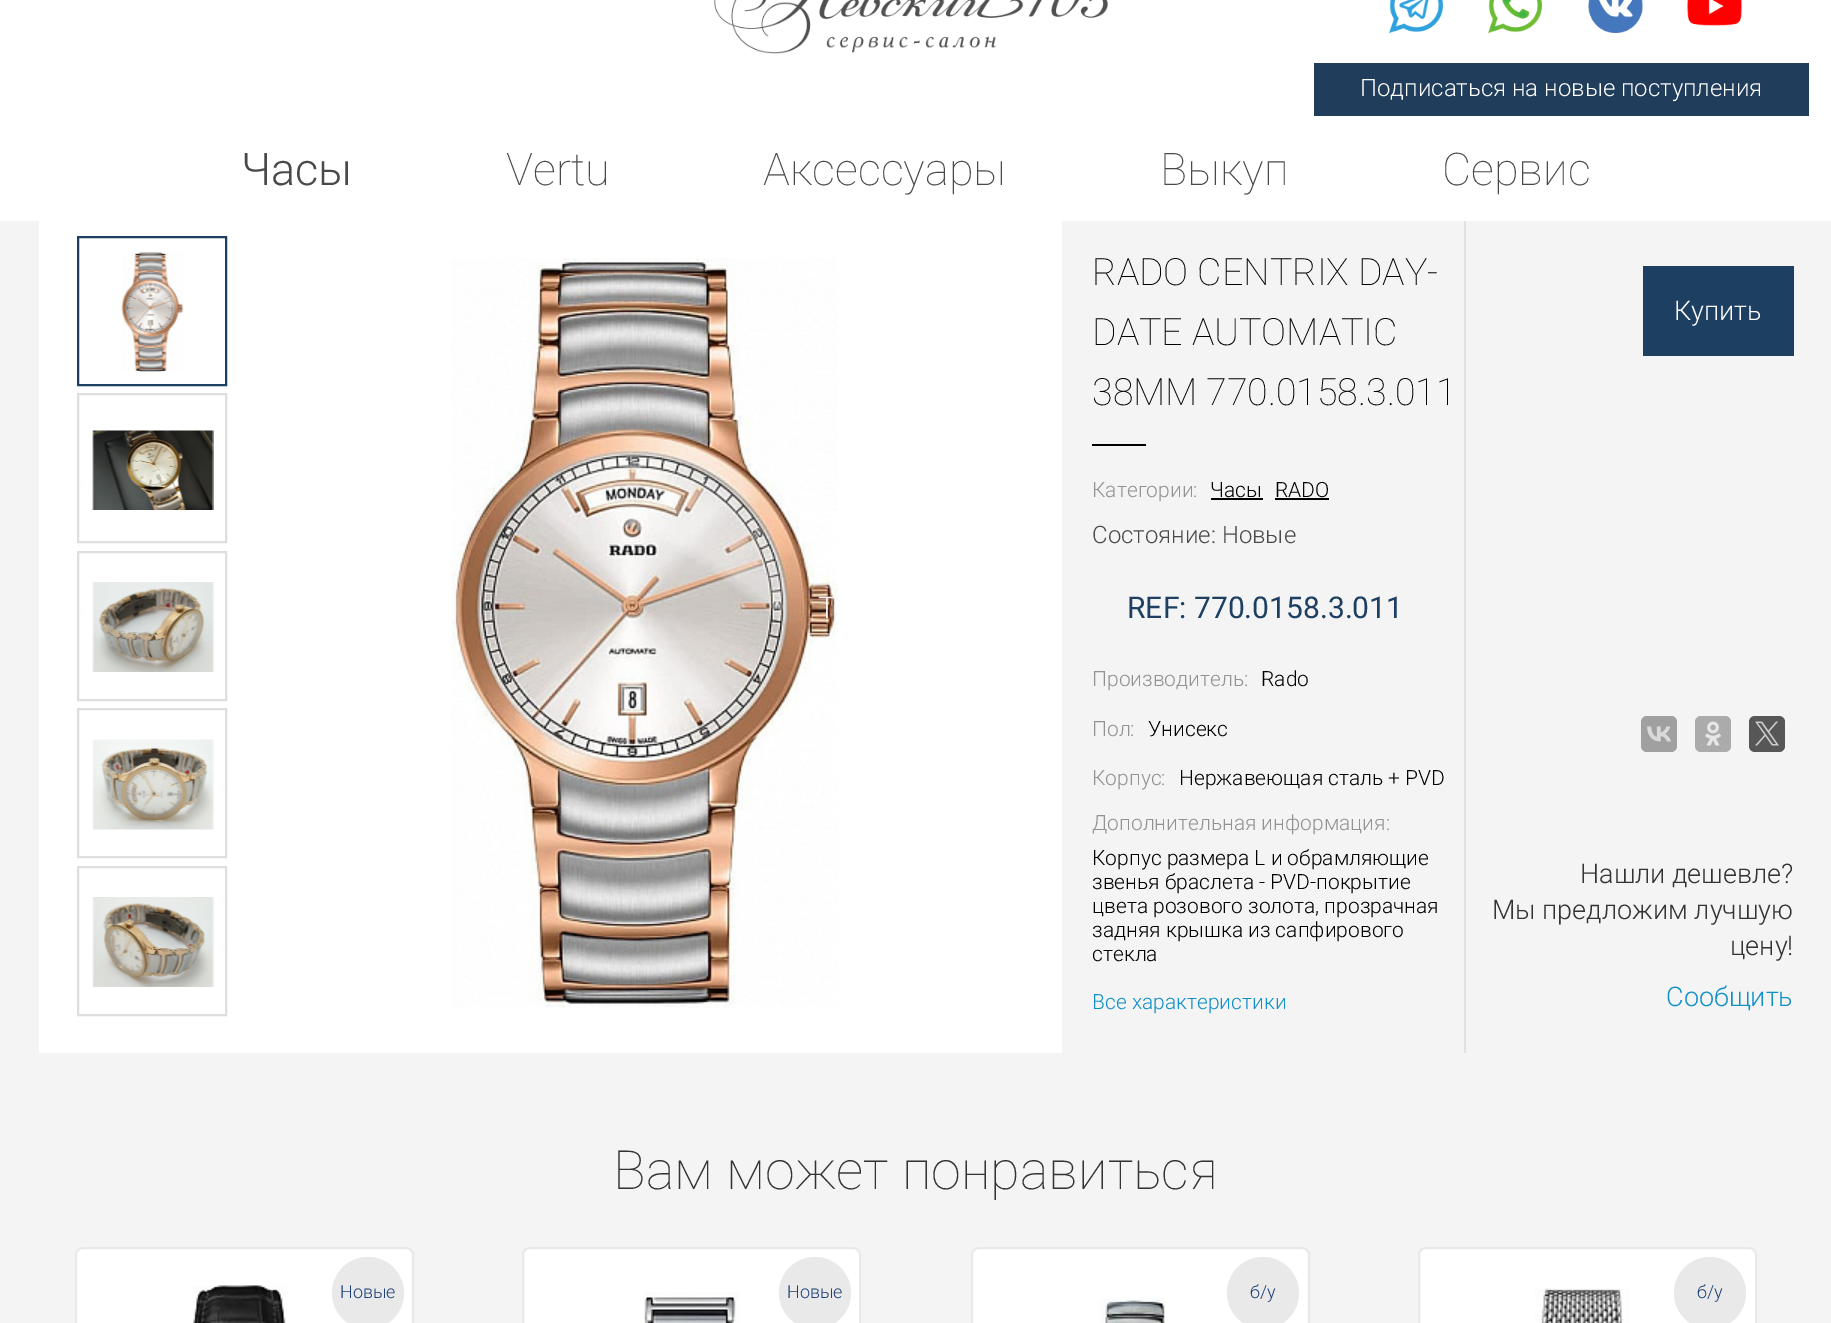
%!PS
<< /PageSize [1831 1323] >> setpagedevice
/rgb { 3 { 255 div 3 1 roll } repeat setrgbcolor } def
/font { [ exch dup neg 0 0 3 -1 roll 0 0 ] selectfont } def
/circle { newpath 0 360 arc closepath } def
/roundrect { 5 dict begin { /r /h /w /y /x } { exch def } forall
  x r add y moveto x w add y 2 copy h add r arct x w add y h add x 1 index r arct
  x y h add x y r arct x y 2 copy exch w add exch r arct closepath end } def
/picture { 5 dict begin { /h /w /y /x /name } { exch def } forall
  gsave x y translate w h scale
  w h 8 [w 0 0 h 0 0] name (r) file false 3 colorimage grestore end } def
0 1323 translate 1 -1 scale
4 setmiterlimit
255 255 255 rgb
0 0 1831 1323 rectfill
(img/1.rgb) 714 0 394 54 picture
(img/2.rgb) 1389 0 54 33 picture
(img/3.rgb) 1488 0 54 33 picture
(img/4.rgb) 1588 0 55 33 picture
(img/5.rgb) 1687 0 55 26 picture
[
  [1314 63 495 53 32 61 91]
  [0 221 1831 1102 244 244 244]
  [39 221 1023 832 255 255 255]
] { aload pop rgb rectfill } forall
29 63 99 rgb
2 setlinewidth
78 237 148 148 rectstroke
(img/6.rgb) 121 252 63 120 picture
222 222 222 rgb
78 394 148 148 rectstroke
(img/7.rgb) 92 430 122 80 picture
78 552 148 148 rectstroke
(img/8.rgb) 92 582 122 90 picture
78 709 148 148 rectstroke
(img/9.rgb) 92 739 122 91 picture
78 867 148 148 rectstroke
(img/10.rgb) 92 897 122 90 picture
(img/11.rgb) 451 258 387 750 picture
[
  [1464 221 2 832 225 225 225]
  [1092 444 54 2 0 0 0]
  [1211 498 52 2 0 0 0]
  [1275 498 54 2 0 0 0]
  [1643 266 151 90 29 63 98]
] { aload pop rgb rectfill } forall
160 160 160 rgb
1641 716 36 36 6 roundrect fill
(img/12.rgb) 1647 726 24 16 picture
171 171 171 rgb
1695 716 36 36 6 roundrect fill
(img/13.rgb) 1705 721 16 25 picture
87 87 87 rgb
1749 716 36 36 6 roundrect fill
(img/14.rgb) 1755 721 24 25 picture
255 255 255 rgb
76 1248 337 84 7 roundrect gsave fill grestore
233 233 233 rgb
stroke
(img/15.rgb) 192 1285 94 38 picture
368 1293 36 circle fill
255 255 255 rgb
523 1248 337 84 7 roundrect gsave fill grestore
233 233 233 rgb
stroke
(img/16.rgb) 644 1292 95 31 picture
815 1293 36 circle fill
255 255 255 rgb
972 1248 337 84 7 roundrect gsave fill grestore
233 233 233 rgb
stroke
1263 1293 36 circle fill
(img/17.rgb) 1097 1298 70 25 picture
255 255 255 rgb
1419 1248 337 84 7 roundrect gsave fill grestore
233 233 233 rgb
stroke
(img/18.rgb) 1535 1287 95 36 picture
1710 1293 36 circle fill
/Roboto-Light 24 font
255 255 255 rgb
1360 96 moveto (Подписаться на новые поступления) show
/Roboto-Light 45 font
73 73 73 rgb
241 185 moveto (Часы) show
/Roboto-Thin 45 font
[
  [(Vertu) 506 185]
  [(Аксессуары) 763 185]
  [(Выкуп) 1160 185]
  [(Сервис) 1442 185]
] { aload pop moveto show } forall
/Roboto-Thin 37.5 font
0 0 0 rgb
[
  [(RADO CENTRIX DAY-) 1092 285]
  [(DATE AUTOMATIC) 1092 345]
  [(38MM 770.0158.3.011) 1092 405]
] { aload pop moveto show } forall
/Roboto-Light 21 font
146 146 146 rgb
1092 497 moveto (Категории:) show
0 0 0 rgb
1210 497 moveto (Часы) show
1275 497 moveto (RADO) show
/Roboto-Light 24 font
73 73 73 rgb
1092 543 moveto (Состояние: Новые) show
/Roboto-Regular 30 font
29 63 98 rgb
1127 618 moveto (REF: 770.0158.3.011) show
/Roboto-Light 21 font
146 146 146 rgb
1092 686 moveto (Производитель:) show
0 0 0 rgb
1261 686 moveto (Rado) show
146 146 146 rgb
1092 736 moveto (Пол:) show
0 0 0 rgb
1148 736 moveto (Унисекс) show
146 146 146 rgb
1092 785 moveto (Корпус:) show
0 0 0 rgb
1179 785 moveto (Нержавеющая сталь + PVD) show
146 146 146 rgb
1092 830 moveto (Дополнительная информация:) show
0 0 0 rgb
[
  [(Корпус размера L и обрамляющие) 1092 865]
  [(звенья браслета - PVD-покрытие) 1092 889]
  [(цвета розового золота, прозрачная) 1092 913]
  [(задняя крышка из сапфирового) 1092 937]
  [(стекла) 1092 961]
] { aload pop moveto show } forall
16 144 199 rgb
1092 1009 moveto (Все характеристики) show
/Roboto-Light 27 font
255 255 255 rgb
1674 320 moveto (Купить) show
51 51 51 rgb
[
  [(Нашли дешевле?) 1580 883]
  [(Мы предложим лучшую) 1492 919]
  [(цену!) 1730 955]
] { aload pop moveto show } forall
16 144 199 rgb
1666 1006 moveto (Сообщить) show
/Roboto-Thin 54 font
51 51 51 rgb
613 1189 moveto (Вам может понравиться) show
/Roboto-Light 18 font
29 63 119 rgb
[
  [(Новые) 340 1298]
  [(Новые) 787 1298]
  [(б/у) 1250 1298]
  [(б/у) 1697 1298]
] { aload pop moveto show } forall
/Roboto-Light 30 font
248 245 244 rgb
818 618 moveto (Т) show
showpage
